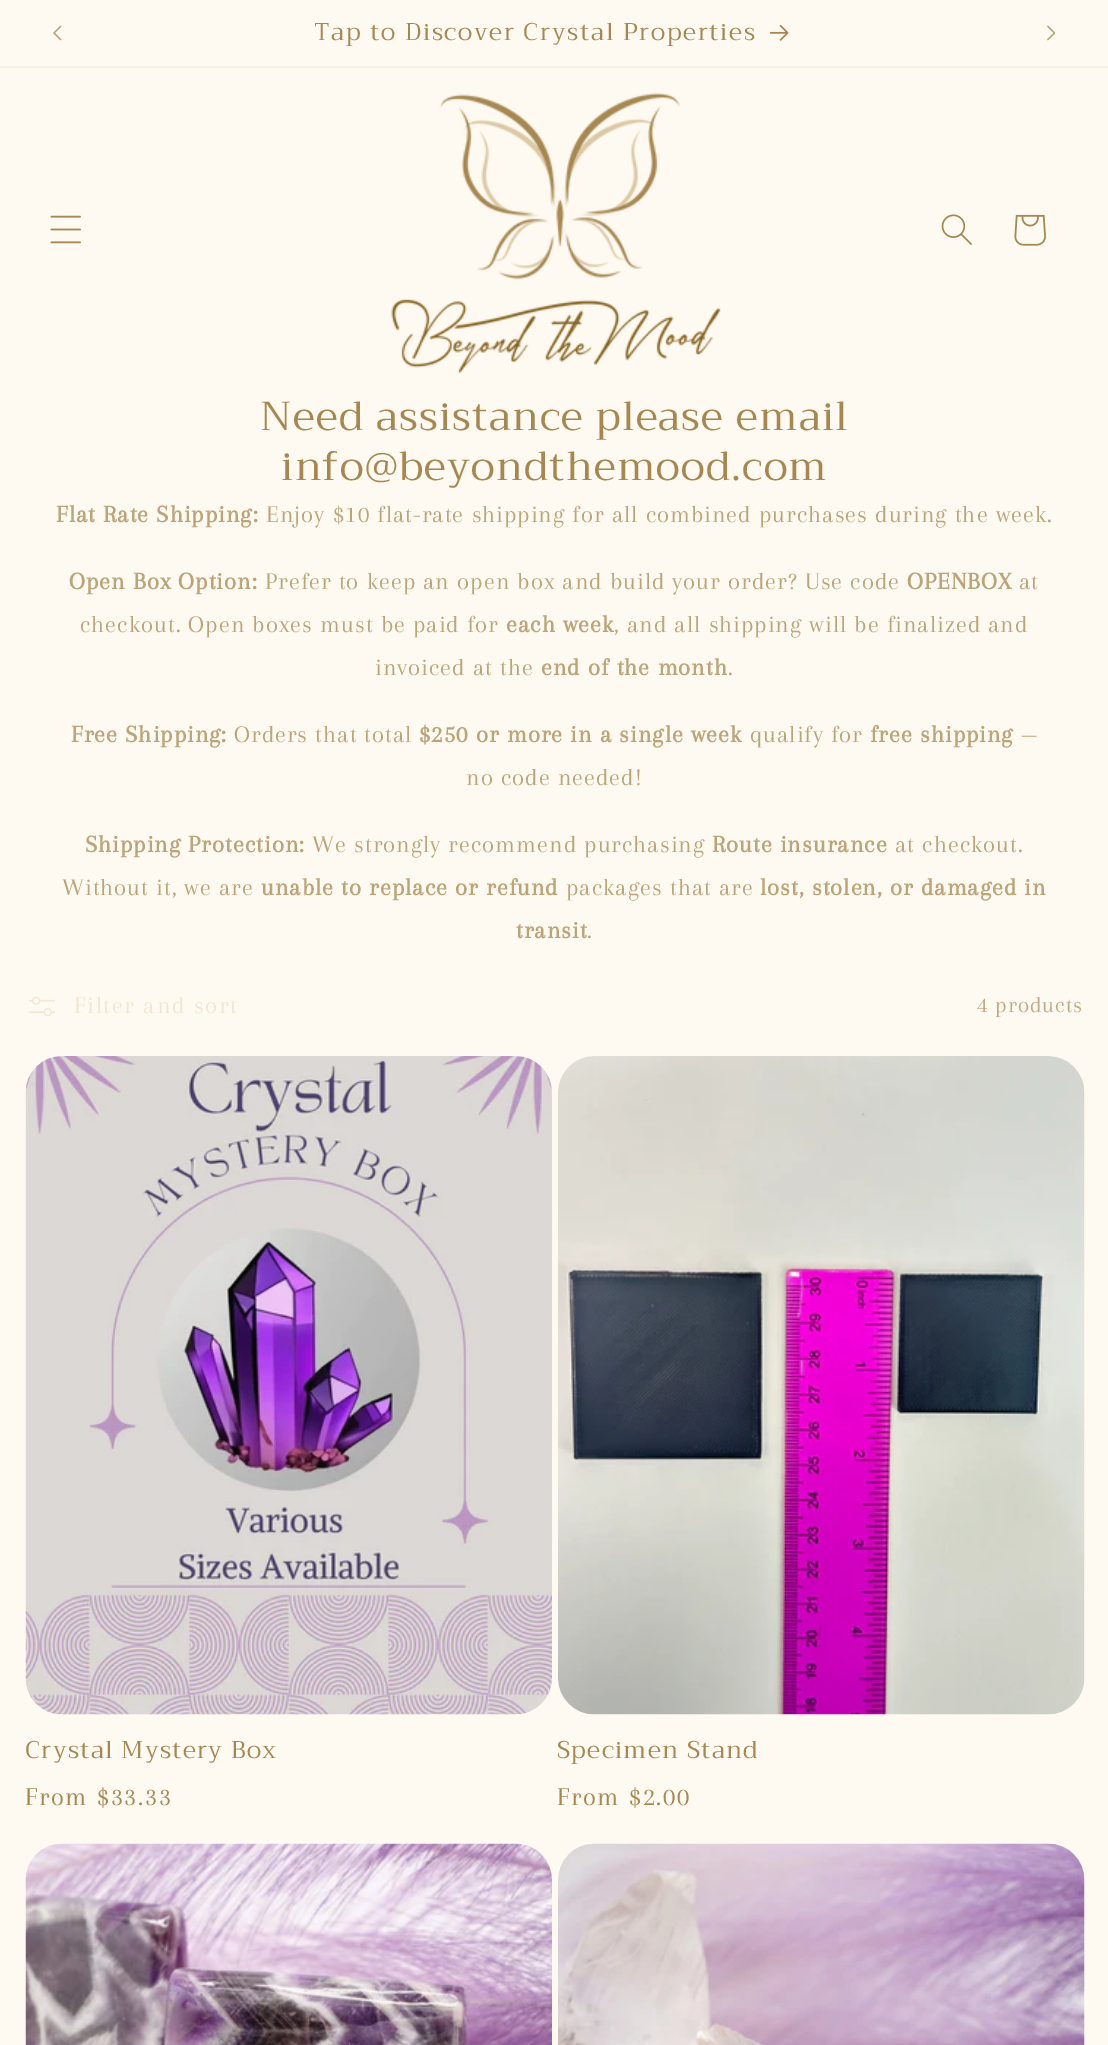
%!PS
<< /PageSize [1108 2045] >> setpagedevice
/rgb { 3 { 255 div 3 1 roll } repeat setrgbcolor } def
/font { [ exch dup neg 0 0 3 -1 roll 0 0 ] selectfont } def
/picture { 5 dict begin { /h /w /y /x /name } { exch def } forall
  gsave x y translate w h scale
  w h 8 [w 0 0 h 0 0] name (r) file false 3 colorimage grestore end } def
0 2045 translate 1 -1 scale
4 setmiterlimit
255 250 241 rgb
0 0 1108 2045 rectfill
248 241 228 rgb
0 66 1108 2 rectfill
(img/1.rgb) 53 25 9 16 picture
(img/2.rgb) 770 24 19 17 picture
(img/3.rgb) 1047 25 9 16 picture
(img/4.rgb) 50 215 31 29 picture
(img/5.rgb) 391 92 330 282 picture
(img/6.rgb) 941 214 31 31 picture
(img/7.rgb) 1014 214 32 32 picture
(img/8.rgb) 29 996 26 21 picture
(img/9.rgb) 25 1056 527 659 picture
(img/10.rgb) 558 1056 527 659 picture
(img/11.rgb) 25 1843 527 202 picture
(img/12.rgb) 558 1843 527 202 picture
/Trirong-Regular 24.25 font
166 135 82 rgb
314 40 moveto 1.65 0 (Tap to Discover Crystal Properties) ashow
/Trirong-Regular 40.5 font
260 430 moveto 1.25 0 (Need assistance please email) ashow
281 480 moveto 1.25 0 (info@beyondthemood.com) ashow
/Arapey-Bold 24.75 font
188 164 122 rgb
56 522 moveto 1 0 (Flat Rate Shipping:) ashow
/Arapey-Regular 24.75 font
266 522 moveto 1 0 (Enjoy $10 flat-rate shipping for all combined purchases during the week.) ashow
/Arapey-Bold 24.75 font
69 589 moveto 1 0 (Open Box Option:) ashow
/Arapey-Regular 24.75 font
265 589 moveto 1 0 (Prefer to keep an open box and build your order? Use code) ashow
/Arapey-Bold 24.75 font
907 589 moveto 1 0 (OPENBOX) ashow
/Arapey-Regular 24.75 font
1019 589 moveto 1 0 (at) ashow
80 632 moveto 1 0 (checkout. Open boxes must be paid for) ashow
/Arapey-Bold 24.75 font
506 632 moveto 1 0 (each week) ashow
/Arapey-Regular 24.75 font
614 632 moveto 1 0 (, and all shipping will be finalized and) ashow
375 675 moveto 1 0 (invoiced at the) ashow
/Arapey-Bold 24.75 font
541 675 moveto 1 0 (end of the month) ashow
/Arapey-Regular 24.75 font
728 675 moveto 1 0 (.) ashow
/Arapey-Bold 24.75 font
71 742 moveto 1 0 (Free Shipping:) ashow
/Arapey-Regular 24.75 font
234 742 moveto 1 0 (Orders that total) ashow
/Arapey-Bold 24.75 font
419 742 moveto 1 0 ($250 or more in a single week) ashow
/Arapey-Regular 24.75 font
750 742 moveto 1 0 (qualify for) ashow
/Arapey-Bold 24.75 font
870 742 moveto 1 0 (free shipping) ashow
/Arapey-Regular 24.75 font
1021 742 moveto 1 0 (—) ashow
466 785 moveto 1 0 (no code needed!) ashow
/Arapey-Bold 24.75 font
85 852 moveto 1 0 (Shipping Protection:) ashow
/Arapey-Regular 24.75 font
312 852 moveto 1 0 (We strongly recommend purchasing) ashow
/Arapey-Bold 24.75 font
712 852 moveto 1 0 (Route insurance) ashow
/Arapey-Regular 24.75 font
895 852 moveto 1 0 (at checkout.) ashow
62 895 moveto 1 0 (Without it, we are) ashow
/Arapey-Bold 24.75 font
261 895 moveto 1 0 (unable to replace or refund) ashow
/Arapey-Regular 24.75 font
566 895 moveto 1 0 (packages that are) ashow
/Arapey-Bold 24.75 font
760 895 moveto 1 0 (lost, stolen, or damaged in) ashow
516 938 moveto 1 0 (transit) ashow
/Arapey-Regular 24.75 font
587 938 moveto 1 0 (.) ashow
240 230 210 rgb
74 1013 moveto 1.65 0 (Filter and sort) ashow
/Arapey-Regular 23 font
193 170 130 rgb
977 1012 moveto 1 0 (4 products) ashow
/Trirong-Regular 24.25 font
166 135 82 rgb
25 1758 moveto 1.25 0 (Crystal Mystery Box) ashow
/Arapey-Regular 26.5 font
25 1805 moveto 1.65 0 (From $33.33) ashow
/Trirong-Regular 24.25 font
557 1758 moveto 1.25 0 (Specimen Stand) ashow
/Arapey-Regular 26.5 font
557 1805 moveto 1.65 0 (From $2.00) ashow
showpage
